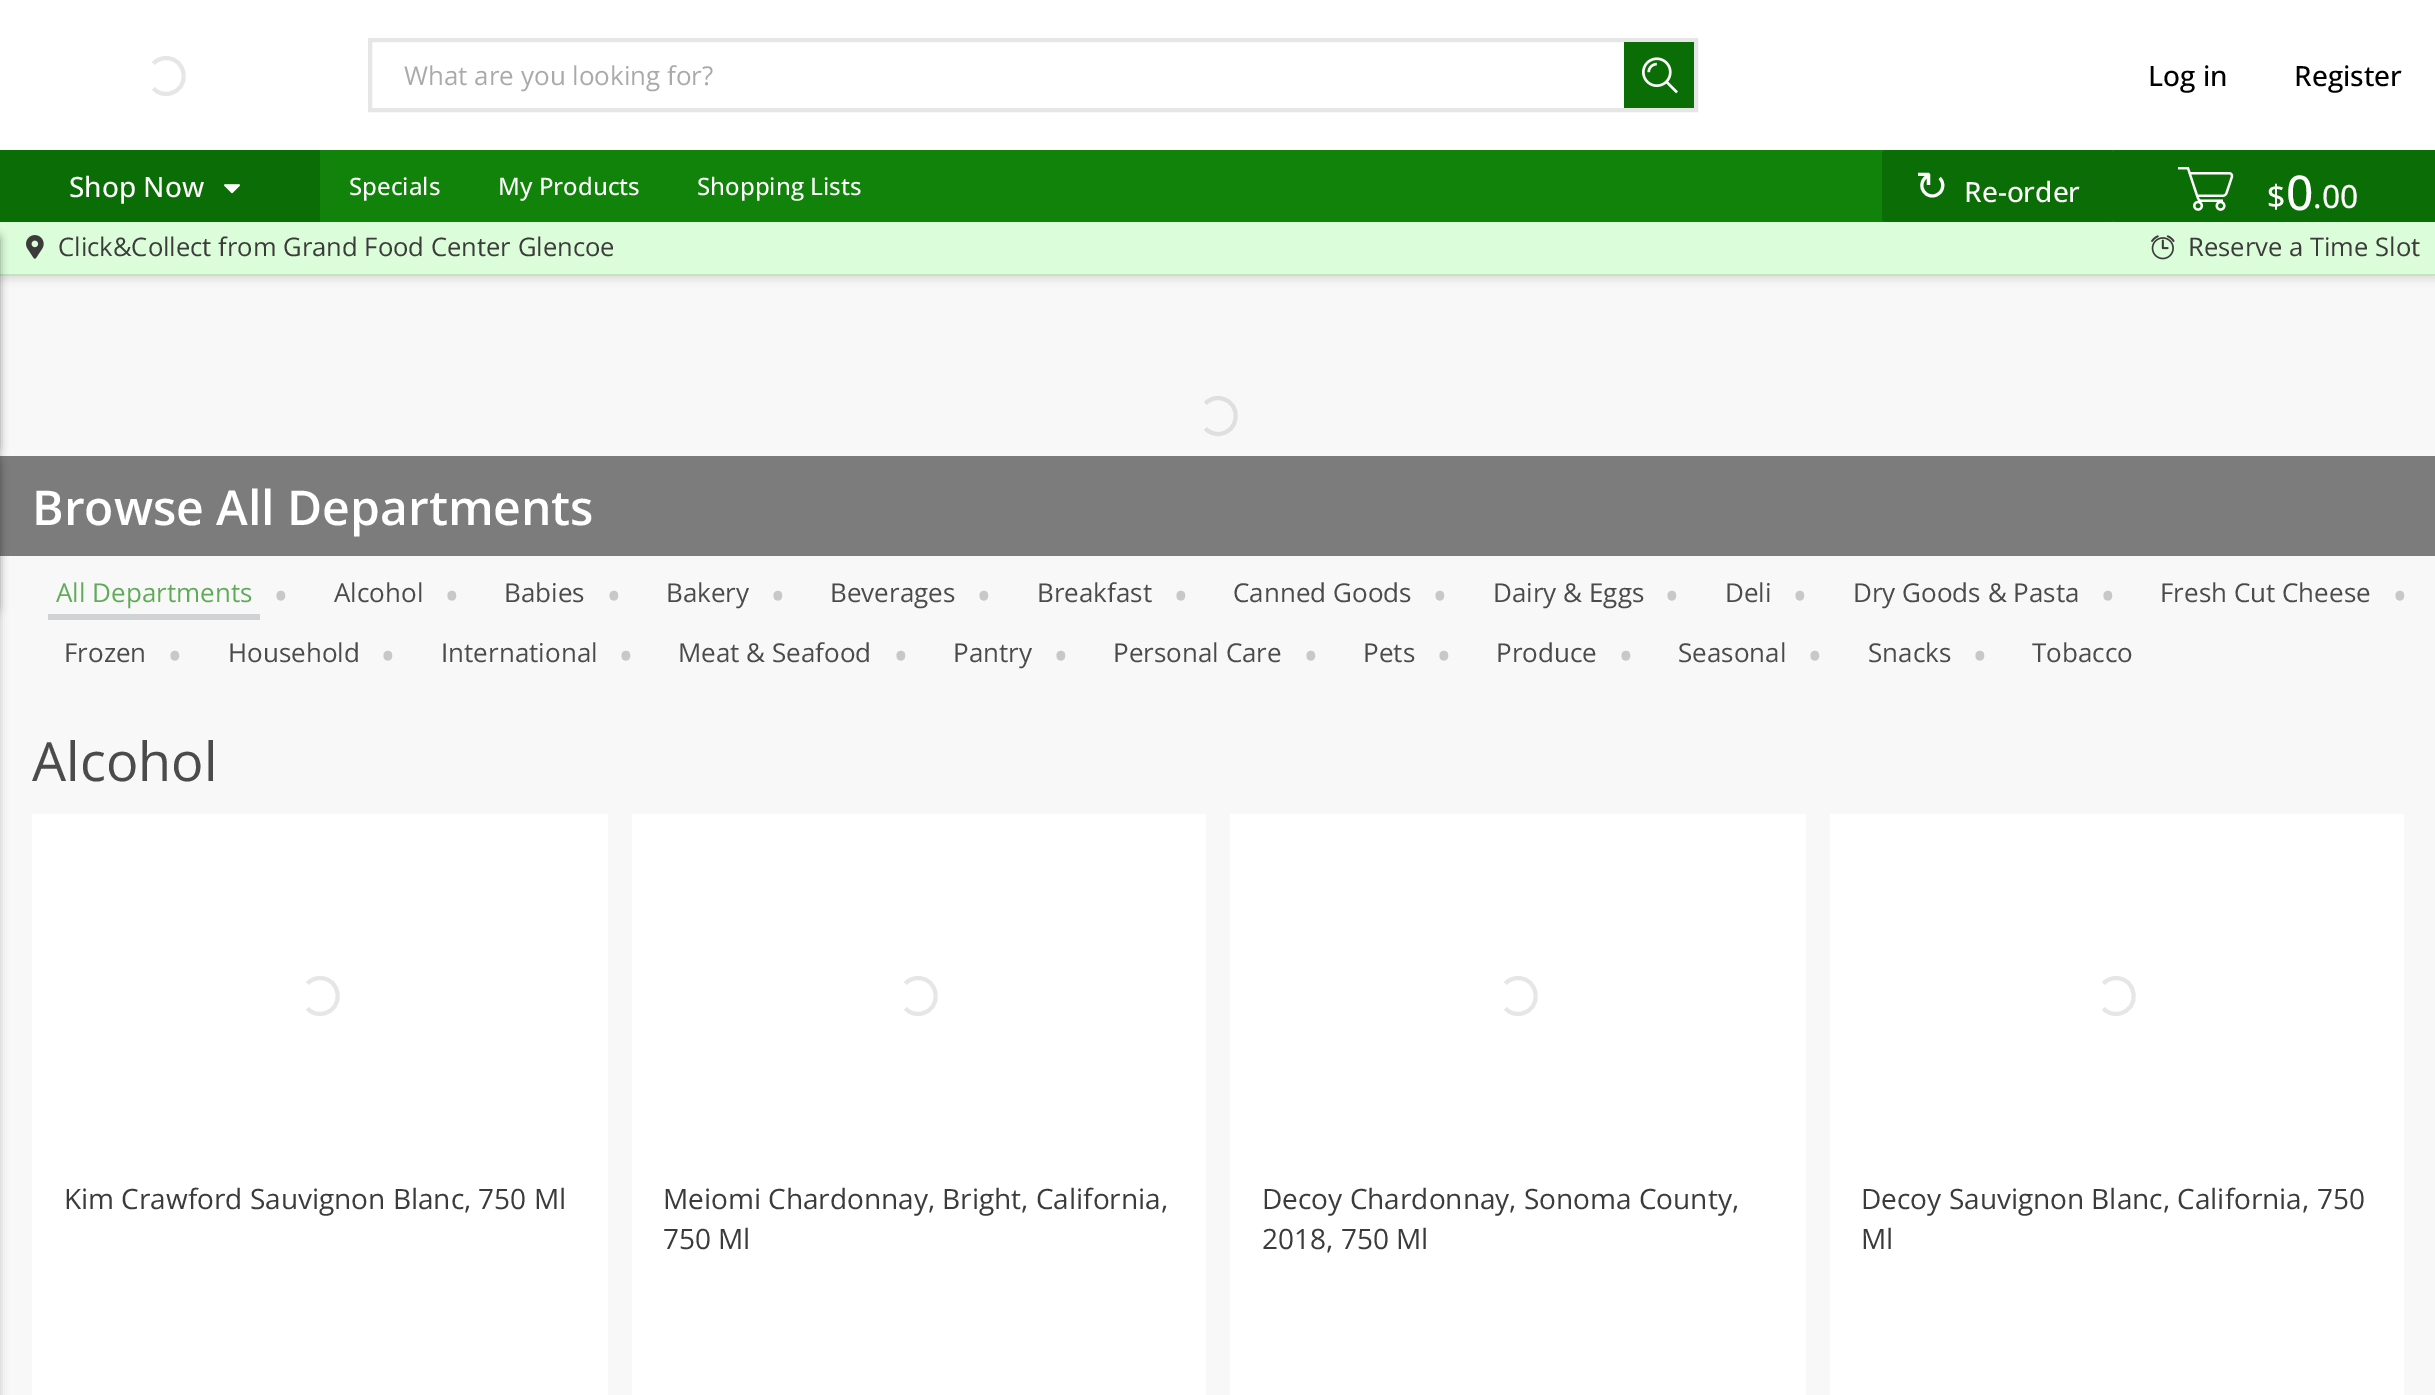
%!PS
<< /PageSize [2435 1395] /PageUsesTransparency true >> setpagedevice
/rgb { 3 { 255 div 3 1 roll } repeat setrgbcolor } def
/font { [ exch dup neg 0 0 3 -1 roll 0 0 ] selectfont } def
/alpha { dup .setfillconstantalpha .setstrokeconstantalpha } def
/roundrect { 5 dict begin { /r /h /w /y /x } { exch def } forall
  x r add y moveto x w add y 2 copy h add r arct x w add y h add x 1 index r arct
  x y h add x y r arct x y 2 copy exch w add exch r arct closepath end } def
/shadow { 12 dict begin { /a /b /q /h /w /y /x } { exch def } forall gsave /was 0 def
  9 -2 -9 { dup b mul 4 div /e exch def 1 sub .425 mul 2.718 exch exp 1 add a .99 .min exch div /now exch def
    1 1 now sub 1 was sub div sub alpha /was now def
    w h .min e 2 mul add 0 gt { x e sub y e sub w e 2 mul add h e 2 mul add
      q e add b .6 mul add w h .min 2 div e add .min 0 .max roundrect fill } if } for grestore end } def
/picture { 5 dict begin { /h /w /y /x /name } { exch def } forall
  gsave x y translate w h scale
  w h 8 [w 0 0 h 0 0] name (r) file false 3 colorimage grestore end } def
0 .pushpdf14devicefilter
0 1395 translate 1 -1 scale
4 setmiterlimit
248 248 248 rgb
0 0 2435 1395 rectfill
255 255 255 rgb
0 0 2435 150 rectfill
230 230 230 rgb
4 setlinewidth
153.5 63.5 moveto 156.5 60 161.5 58 166 58 curveto 187.5 58 190.5 89.5 169.5 93.5 curveto 163.5 95 157.5 93 153.5 88.5 curveto stroke
370 40 1326 70 rectstroke
11 109 5 rgb
1624 42 70 66 rectfill
(img/1.rgb) 1642 57 36 37 picture
0 0 0 rgb
0 226 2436 54 0 4 0.1 shadow
17 130 10 rgb
320 150 1794 72 rectfill
11 109 5 rgb
0 150 320 72 rectfill
(img/2.rgb) 224 184 16 10 picture
[
  [0 222 2435 52 220 253 218]
  [0 274 2435 2 194 229 191]
  [0 456 2435 100 124 124 124]
] { aload pop rgb rectfill } forall
0 0 0 rgb
-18 234 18 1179 6 4 0.2 shadow
-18 234 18 218 6 4 0.2 shadow
-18 460 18 152 6 4 0.2 shadow
11 109 5 rgb
1882 150 232 72 4 roundrect fill
2114 150 321 72 rectfill
(img/3.rgb) 2178 167 56 44 picture
(img/4.rgb) 26 235 18 24 picture
(img/5.rgb) 2151 235 24 25 picture
223 223 223 rgb
1205.5 403.5 moveto 1209.5 399 1215.5 397 1221.5 398.5 curveto 1242.5 402.5 1239.5 434 1218 434 curveto 1213.5 434 1208.5 432 1205.5 428.5 curveto stroke
209 210 211 rgb
48 614 212 6 rectfill
255 255 255 rgb
32 814 576 581 rectfill
230 230 230 rgb
307.5 983.5 moveto 310.5 980 315.5 978 320 978 curveto 341.5 978 344.5 1009.5 323.5 1013.5 curveto 317.5 1015 311.5 1013 307.5 1008.5 curveto stroke
255 255 255 rgb
632 814 574 581 rectfill
230 230 230 rgb
905.5 983.5 moveto 908.5 980 913.5 978 918 978 curveto 939.5 978 942.5 1009.5 921.5 1013.5 curveto 915.5 1015 909.5 1013 905.5 1008.5 curveto stroke
255 255 255 rgb
1230 814 576 581 rectfill
230 230 230 rgb
1505.5 983.5 moveto 1508.5 980 1513.5 978 1518 978 curveto 1539.5 978 1542.5 1009.5 1521.5 1013.5 curveto 1515.5 1015 1509.5 1013 1505.5 1008.5 curveto stroke
255 255 255 rgb
1830 814 574 581 rectfill
230 230 230 rgb
2103.5 983.5 moveto 2106.5 980 2111.5 978 2116 978 curveto 2137.5 978 2140.5 1009.5 2119.5 1013.5 curveto 2113.5 1015 2107.5 1013 2103.5 1008.5 curveto stroke
/OpenSans-Regular 26 font
170 170 170 rgb
404 85 moveto (What are you looking for?) show
/OpenSans-Medium 28 font
0 0 0 rgb
2148 86 moveto (Log in) show
2294 86 moveto (Register) show
255 255 255 rgb
69 197 moveto (Shop Now) show
/OpenSans-Medium 24 font
[
  [(Specials) 349 195]
  [(My Products) 498 195]
  [(Shopping Lists) 697 195]
] { aload pop moveto show } forall
/DejaVuSans-Regular 40 font
1915 200 moveto (↻) show
/OpenSans-Medium 28 font
1964 202 moveto (Re-order) show
/OpenSans-Medium 32 font
2267 208 moveto ($) show
/OpenSans-Medium 48 font
2286 210 moveto (0) show
/OpenSans-Medium 32 font
2313 208 moveto (.00) show
/OpenSans-Regular 25.6 font
60 59 59 rgb
58 256 moveto (Click&Collect from Grand Food Center Glencoe) show
2188 256 moveto (Reserve a Time Slot) show
/OpenSans-SemiBold 48 font
255 255 255 rgb
32 525 moveto (Browse All Departments) show
/OpenSans-Regular 26 font
95 171 88 rgb
56 602 moveto (All Departments) show
/OpenSans-Regular 42 font
200 200 200 rgb
273 611 moveto (•) show
/OpenSans-Regular 26 font
76 75 75 rgb
334 602 moveto (Alcohol) show
/OpenSans-Regular 42 font
200 200 200 rgb
444 611 moveto (•) show
/OpenSans-Regular 26 font
76 75 75 rgb
504 602 moveto (Babies) show
/OpenSans-Regular 42 font
200 200 200 rgb
606 611 moveto (•) show
/OpenSans-Regular 26 font
76 75 75 rgb
666 602 moveto (Bakery) show
/OpenSans-Regular 42 font
200 200 200 rgb
770 611 moveto (•) show
/OpenSans-Regular 26 font
76 75 75 rgb
830 602 moveto (Beverages) show
/OpenSans-Regular 42 font
200 200 200 rgb
976 611 moveto (•) show
/OpenSans-Regular 26 font
76 75 75 rgb
1037 602 moveto (Breakfast) show
/OpenSans-Regular 42 font
200 200 200 rgb
1173 611 moveto (•) show
/OpenSans-Regular 26 font
76 75 75 rgb
1233 602 moveto (Canned Goods) show
/OpenSans-Regular 42 font
200 200 200 rgb
1432 611 moveto (•) show
/OpenSans-Regular 26 font
76 75 75 rgb
1493 602 moveto (Dairy & Eggs) show
/OpenSans-Regular 42 font
200 200 200 rgb
1664 611 moveto (•) show
/OpenSans-Regular 26 font
76 75 75 rgb
1725 602 moveto (Deli) show
/OpenSans-Regular 42 font
200 200 200 rgb
1792 611 moveto (•) show
/OpenSans-Regular 26 font
76 75 75 rgb
1853 602 moveto (Dry Goods & Pasta) show
/OpenSans-Regular 42 font
200 200 200 rgb
2100 611 moveto (•) show
/OpenSans-Regular 26 font
76 75 75 rgb
2160 602 moveto (Fresh Cut Cheese) show
/OpenSans-Regular 42 font
200 200 200 rgb
2392 611 moveto (•) show
/OpenSans-Regular 26 font
76 75 75 rgb
64 662 moveto (Frozen) show
/OpenSans-Regular 42 font
200 200 200 rgb
167 671 moveto (•) show
/OpenSans-Regular 26 font
76 75 75 rgb
228 662 moveto (Household) show
/OpenSans-Regular 42 font
200 200 200 rgb
380 671 moveto (•) show
/OpenSans-Regular 26 font
76 75 75 rgb
441 662 moveto (International) show
/OpenSans-Regular 42 font
200 200 200 rgb
618 671 moveto (•) show
/OpenSans-Regular 26 font
76 75 75 rgb
678 662 moveto (Meat & Seafood) show
/OpenSans-Regular 42 font
200 200 200 rgb
893 671 moveto (•) show
/OpenSans-Regular 26 font
76 75 75 rgb
953 662 moveto (Pantry) show
/OpenSans-Regular 42 font
200 200 200 rgb
1053 671 moveto (•) show
/OpenSans-Regular 26 font
76 75 75 rgb
1113 662 moveto (Personal Care) show
/OpenSans-Regular 42 font
200 200 200 rgb
1303 671 moveto (•) show
/OpenSans-Regular 26 font
76 75 75 rgb
1363 662 moveto (Pets) show
/OpenSans-Regular 42 font
200 200 200 rgb
1436 671 moveto (•) show
/OpenSans-Regular 26 font
76 75 75 rgb
1496 662 moveto (Produce) show
/OpenSans-Regular 42 font
200 200 200 rgb
1618 671 moveto (•) show
/OpenSans-Regular 26 font
76 75 75 rgb
1678 662 moveto (Seasonal) show
/OpenSans-Regular 42 font
200 200 200 rgb
1807 671 moveto (•) show
/OpenSans-Regular 26 font
76 75 75 rgb
1868 662 moveto (Snacks) show
/OpenSans-Regular 42 font
200 200 200 rgb
1972 671 moveto (•) show
/OpenSans-Regular 26 font
76 75 75 rgb
2032 662 moveto (Tobacco) show
/OpenSans-Regular 54 font
32 781 moveto (Alcohol) show
/OpenSans-Regular 28 font
60 59 59 rgb
[
  [(Kim Crawford Sauvignon Blanc, 750 Ml) 64 1209]
  [(Meiomi Chardonnay, Bright, California,) 663 1209]
  [(750 Ml) 663 1249]
  [(Decoy Chardonnay, Sonoma County,) 1262 1209]
  [(2018, 750 Ml) 1262 1249]
  [(Decoy Sauvignon Blanc, California, 750) 1861 1209]
  [(Ml) 1861 1249]
] { aload pop moveto show } forall
.poppdf14devicefilter showpage
